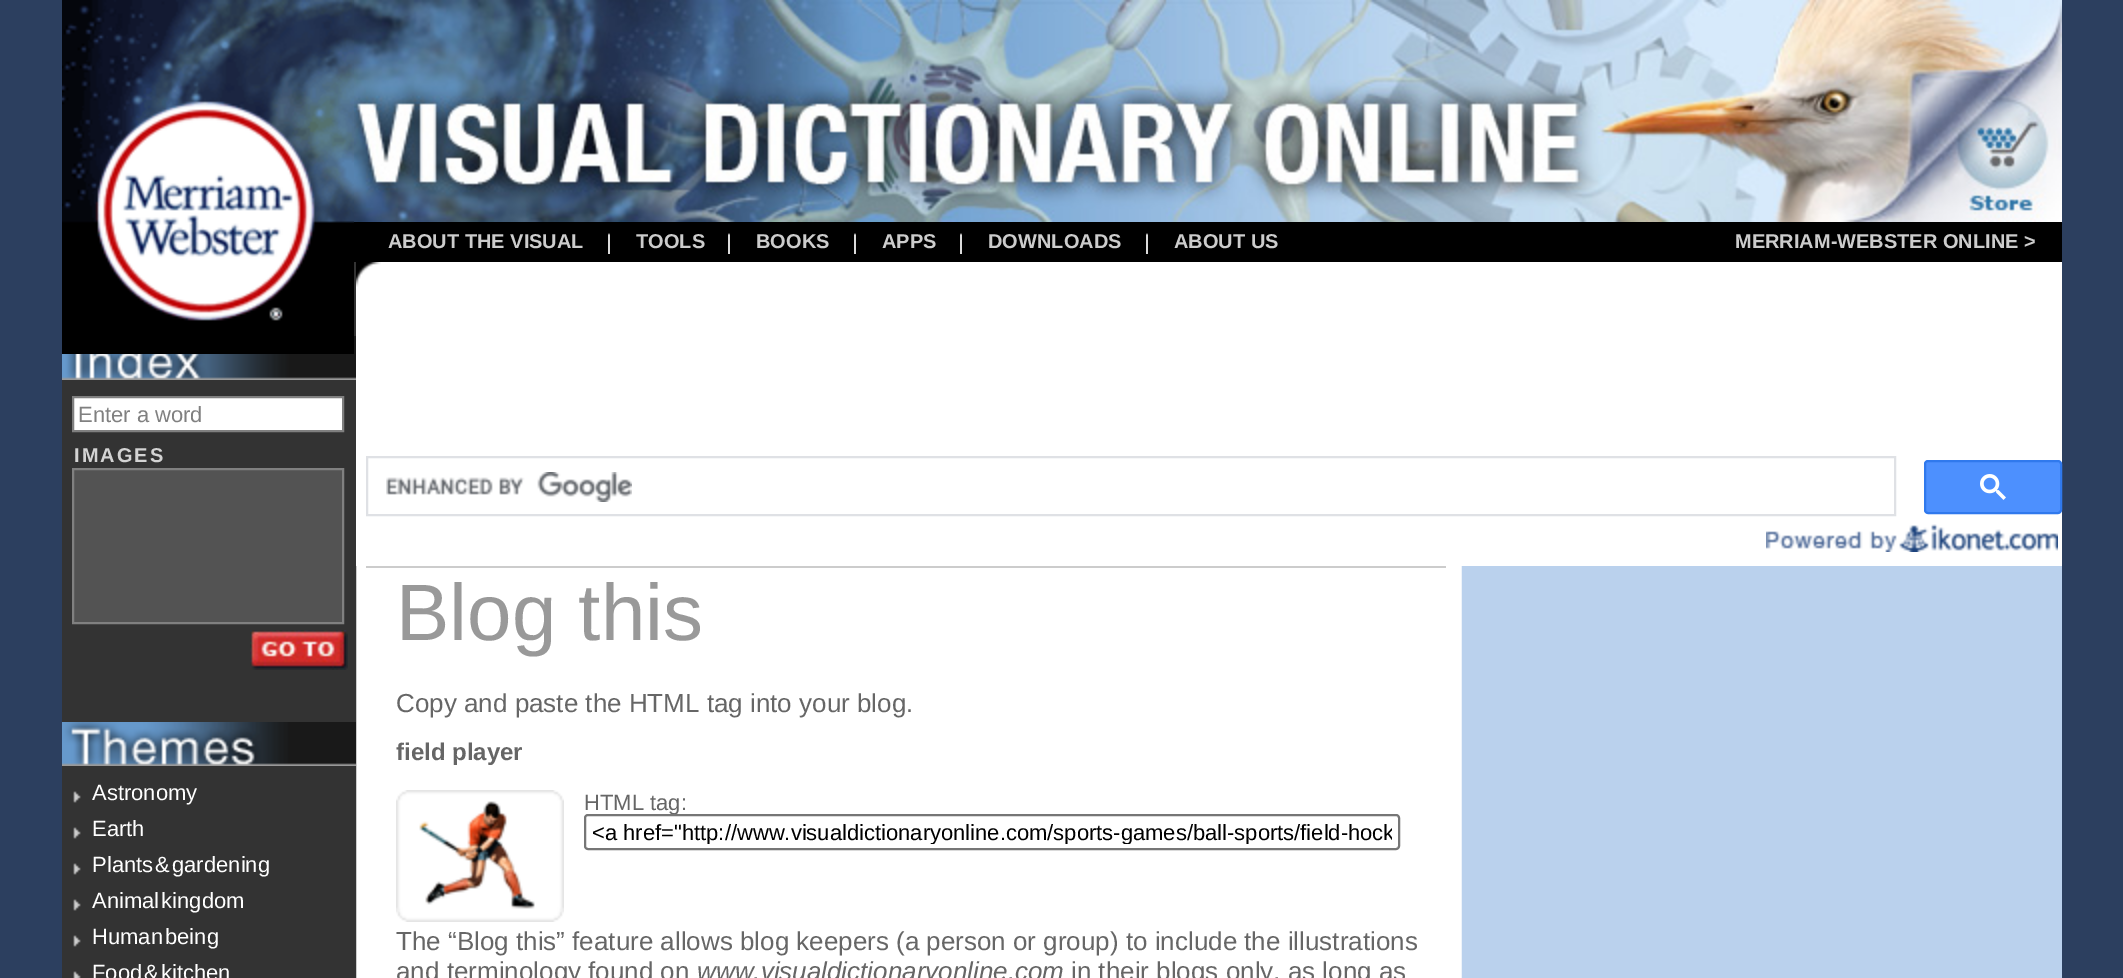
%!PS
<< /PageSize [2123 978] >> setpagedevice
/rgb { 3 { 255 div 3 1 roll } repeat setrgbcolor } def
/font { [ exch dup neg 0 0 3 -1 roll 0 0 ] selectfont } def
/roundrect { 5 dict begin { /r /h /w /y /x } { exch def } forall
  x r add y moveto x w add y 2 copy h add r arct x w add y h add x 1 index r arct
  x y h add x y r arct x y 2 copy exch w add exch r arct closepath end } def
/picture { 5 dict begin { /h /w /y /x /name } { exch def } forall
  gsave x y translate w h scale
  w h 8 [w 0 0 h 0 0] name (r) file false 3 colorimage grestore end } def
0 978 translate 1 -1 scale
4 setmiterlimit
44 63 95 rgb
0 0 2123 978 rectfill
(img/1.rgb) 356 566 1106 412 picture
51 51 51 rgb
62 262 294 716 rectfill
(img/5.rgb) 62 336 294 44 picture
(img/2.rgb) 62 0 292 354 picture
0 0 0 rgb
354 222 1708 40 rectfill
(img/3.rgb) 354 0 1708 222 picture
(img/4.rgb) 608 233 2 21 picture
(img/4.rgb) 728 233 2 21 picture
(img/4.rgb) 854 233 2 21 picture
(img/4.rgb) 960 233 2 21 picture
(img/4.rgb) 1146 233 2 21 picture
255 255 255 rgb
73 397 moveto 343 397 lineto 343 431 lineto 73 431 lineto closepath gsave fill grestore
128 128 128 rgb
2 setlinewidth
stroke
83 83 83 rgb
73 469 moveto 343 469 lineto 343 623 lineto 73 623 lineto closepath gsave fill grestore
128 128 128 rgb
stroke
(img/6.rgb) 250 630 98 40 picture
(img/7.rgb) 62 722 294 44 picture
(img/8.rgb) 73 791 8 12 picture
(img/8.rgb) 73 827 8 12 picture
(img/8.rgb) 73 863 8 12 picture
(img/8.rgb) 73 899 8 12 picture
(img/8.rgb) 73 935 8 12 picture
(img/9.rgb) 73 971 8 7 picture
255 255 255 rgb
356 262 1706 304 rectfill
(img/10.rgb) 356 262 25 25 picture
223 225 229 rgb
367 457 1528 58 rectstroke
(img/11.rgb) 386 472 246 30 picture
77 144 254 rgb
1925 461 136 52 3 roundrect gsave fill grestore
48 121 237 rgb
stroke
(img/12.rgb) 1980 474 26 26 picture
(img/13.rgb) 1766 524 292 28 picture
204 204 204 rgb
366 566 1080 2 rectfill
(img/14.rgb) 396 790 168 132 picture
186 209 237 rgb
1462 566 600 412 rectfill
/LiberationSans-Bold 20 font
204 204 204 rgb
[
  [(ABOUT THE VISUAL) 388 248]
  [(TOOLS) 636 248]
  [(BOOKS) 756 248]
  [(APPS) 882 248]
  [(DOWNLOADS) 988 248]
  [(ABOUT US) 1174 248]
  [(MERRIAM-WEBSTER ONLINE >) 1735 248]
] { aload pop moveto show } forall
/LiberationSans-Regular 22 font
128 128 128 rgb
78 422 moveto (Enter a word) show
/LiberationSans-Bold 20 font
211 211 211 rgb
74 462 moveto 2 0 (IMAGES) ashow
/LiberationSans-Regular 22 font
255 255 255 rgb
92 800 moveto (Astronomy) show
92 836 moveto (Earth) show
92 872 moveto -4 0 32 (Plants & gardening) widthshow
92 908 moveto -4 0 32 (Animal kingdom) widthshow
92 944 moveto -4 0 32 (Human being) widthshow
92 980 moveto -4 0 32 (Food & kitchen) widthshow
/LiberationSans-Regular 80 font
153 153 153 rgb
396 640 moveto (Blog this) show
/LiberationSans-Regular 26 font
102 102 102 rgb
396 712 moveto (Copy and paste the HTML tag into your blog.) show
/LiberationSans-Bold 24 font
396 760 moveto (field player) show
/LiberationSans-Regular 22 font
584 810 moveto (HTML tag:) show
255 255 255 rgb
585 815 814 34 3 roundrect gsave fill grestore
118 118 118 rgb
stroke
gsave
592 820 800 24 rectclip
0 0 0 rgb
592 840 moveto (<a href="http://www.visualdictionaryonline.com/sports-games/ball-sports/field-hock) show
grestore
/LiberationSans-Regular 26 font
102 102 102 rgb
396 950 moveto (The “Blog this” feature allows blog keepers \(a person or group\) to include the illustrations) show
396 980 moveto (and terminology found on) show
/LiberationSans-Italic 26 font
697 980 moveto (www.visualdictionaryonline.com) show
/LiberationSans-Regular 26 font
1071 980 moveto (in their blogs only, as long as) show
showpage
